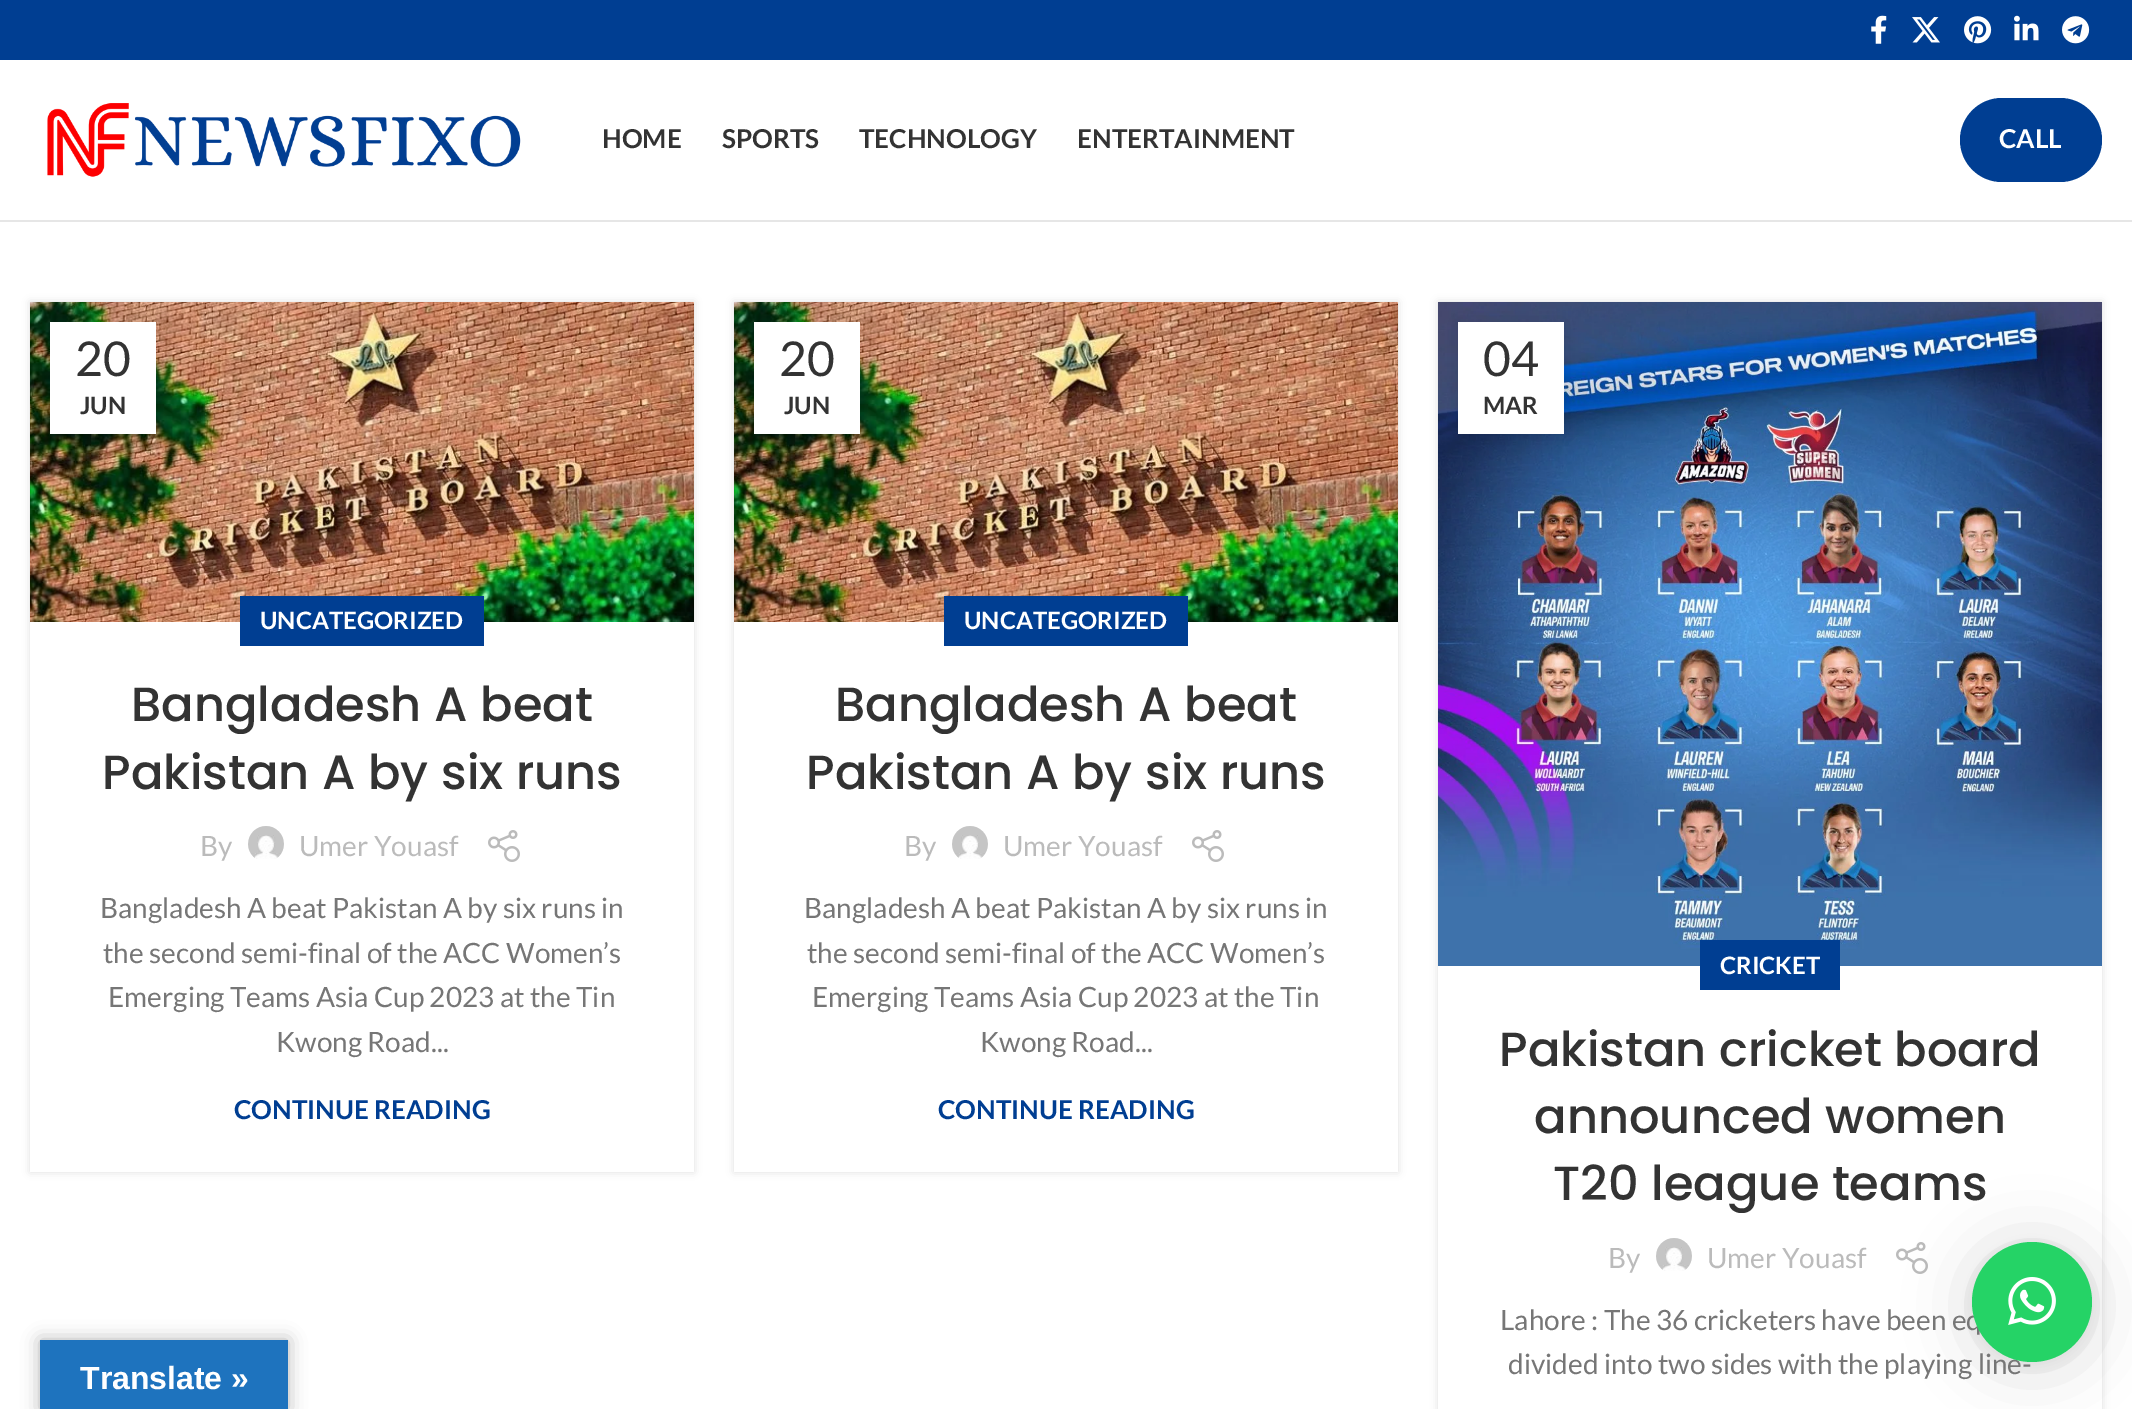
%!PS
<< /PageSize [2132 1409] /PageUsesTransparency true >> setpagedevice
/rgb { 3 { 255 div 3 1 roll } repeat setrgbcolor } def
/font { [ exch dup neg 0 0 3 -1 roll 0 0 ] selectfont } def
/alpha { dup .setfillconstantalpha .setstrokeconstantalpha } def
/circle { newpath 0 360 arc closepath } def
/roundrect { 5 dict begin { /r /h /w /y /x } { exch def } forall
  x r add y moveto x w add y 2 copy h add r arct x w add y h add x 1 index r arct
  x y h add x y r arct x y 2 copy exch w add exch r arct closepath end } def
/shadow { 12 dict begin { /a /b /q /h /w /y /x } { exch def } forall gsave /was 0 def
  9 -2 -9 { dup b mul 4 div /e exch def 1 sub .425 mul 2.718 exch exp 1 add a .99 .min exch div /now exch def
    1 1 now sub 1 was sub div sub alpha /was now def
    w h .min e 2 mul add 0 gt { x e sub y e sub w e 2 mul add h e 2 mul add
      q e add b .6 mul add w h .min 2 div e add .min 0 .max roundrect fill } if } for grestore end } def
/picture { 5 dict begin { /h /w /y /x /name } { exch def } forall
  gsave x y translate w h scale
  w h 8 [w 0 0 h 0 0] name (r) file false 3 colorimage grestore end } def
0 .pushpdf14devicefilter
0 1409 translate 1 -1 scale
4 setmiterlimit
255 255 255 rgb
0 0 2132 1409 rectfill
0 62 146 rgb
0 0 2132 60 rectfill
(img/1.rgb) 1871 15 16 29 picture
(img/2.rgb) 1912 17 28 26 picture
(img/3.rgb) 1964 16 28 28 picture
(img/4.rgb) 2014 15 25 26 picture
(img/5.rgb) 2062 16 28 28 picture
230 230 230 rgb
0 220 2132 2 rectfill
(img/6.rgb) 47 103 474 74 picture
0 62 146 rgb
1960 98 142 84 42 roundrect fill
gsave
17 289 moveto 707 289 lineto 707 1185 lineto 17 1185 lineto closepath 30 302 moveto 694 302 lineto 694 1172 lineto 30 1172 lineto closepath eoclip newpath
0 0 0 rgb
30 302 664 870 0 4 0.12 shadow
grestore
(img/7.rgb) 30 302 664 320 picture
0 0 0 rgb
50 322 106 112 0 9 0.1 shadow
255 255 255 rgb
50 322 106 112 rectfill
0 62 146 rgb
240 596 244 50 rectfill
(img/8.rgb) 248 826 36 33 picture
(img/9.rgb) 488 830 32 32 picture
gsave
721 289 moveto 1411 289 lineto 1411 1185 lineto 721 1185 lineto closepath 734 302 moveto 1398 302 lineto 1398 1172 lineto 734 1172 lineto closepath eoclip newpath
0 0 0 rgb
734 302 664 870 0 4 0.12 shadow
grestore
(img/7.rgb) 734 302 664 320 picture
0 0 0 rgb
754 322 106 112 0 9 0.1 shadow
255 255 255 rgb
754 322 106 112 rectfill
0 62 146 rgb
944 596 244 50 rectfill
(img/10.rgb) 952 826 36 33 picture
(img/9.rgb) 1192 830 32 32 picture
gsave
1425 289 moveto 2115 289 lineto 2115 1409 lineto 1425 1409 lineto closepath 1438 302 moveto 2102 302 lineto 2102 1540 lineto 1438 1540 lineto closepath eoclip newpath
0 0 0 rgb
1438 302 664 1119 0 4 0.12 shadow
grestore
(img/11.rgb) 1438 302 664 664 picture
0 0 0 rgb
1458 322 106 112 0 9 0.1 shadow
255 255 255 rgb
1458 322 106 112 rectfill
0 62 146 rgb
1700 940 140 50 rectfill
(img/12.rgb) 1656 1238 36 33 picture
(img/9.rgb) 1896 1242 32 32 picture
0 0 0 rgb
40 1340 248 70 0 9 0.3 shadow
30 115 190 rgb
40 1340 248 69 rectfill
0 0 0 rgb
1972 1246 120 120 60 32 0.16 shadow
1972 1244 120 120 60 6 0.06 shadow
/Lato-Bold 26 font
51 51 51 rgb
[
  [(HOME) 602 148]
  [(SPORTS) 722 148]
  [(TECHNOLOGY) 859 148]
  [(ENTERTAINMENT) 1077 148]
] { aload pop moveto show } forall
255 255 255 rgb
1999 148 moveto (CALL) show
/Lato-Regular 48 font
51 51 51 rgb
75 376 moveto (20) show
/Lato-Bold 24 font
80 414 moveto (JUN) show
255 255 255 rgb
260 629 moveto (UNCATEGORIZED) show
/Poppins-Medium 48 font
51 51 51 rgb
131 721 moveto (Bangladesh A beat) show
102 789 moveto (Pakistan A by six runs) show
/Lato-Regular 28 font
187 187 187 rgb
200 856 moveto (By) show
299 856 moveto (Umer Youasf) show
118 118 118 rgb
[
  [(Bangladesh A beat Pakistan A by six runs in) 100 918]
  [(the second semi-final of the ACC Women’s) 103 963]
  [(Emerging Teams Asia Cup 2023 at the Tin) 108 1007]
  [(Kwong Road...) 276 1052]
] { aload pop moveto show } forall
/Lato-Bold 26 font
0 62 146 rgb
234 1119 moveto (CONTINUE READING) show
/Lato-Regular 48 font
51 51 51 rgb
779 376 moveto (20) show
/Lato-Bold 24 font
784 414 moveto (JUN) show
255 255 255 rgb
964 629 moveto (UNCATEGORIZED) show
/Poppins-Medium 48 font
51 51 51 rgb
835 721 moveto (Bangladesh A beat) show
806 789 moveto (Pakistan A by six runs) show
/Lato-Regular 28 font
187 187 187 rgb
904 856 moveto (By) show
1003 856 moveto (Umer Youasf) show
118 118 118 rgb
[
  [(Bangladesh A beat Pakistan A by six runs in) 804 918]
  [(the second semi-final of the ACC Women’s) 807 963]
  [(Emerging Teams Asia Cup 2023 at the Tin) 812 1007]
  [(Kwong Road...) 980 1052]
] { aload pop moveto show } forall
/Lato-Bold 26 font
0 62 146 rgb
938 1119 moveto (CONTINUE READING) show
/Lato-Regular 48 font
51 51 51 rgb
1483 376 moveto (04) show
/Lato-Bold 24 font
1483 414 moveto (MAR) show
255 255 255 rgb
1720 974 moveto (CRICKET) show
/Poppins-Medium 48 font
51 51 51 rgb
[
  [(Pakistan cricket board) 1499 1066]
  [(announced women) 1534 1133]
  [(T20 league teams) 1553 1200]
] { aload pop moveto show } forall
/Lato-Regular 28 font
187 187 187 rgb
1608 1268 moveto (By) show
1707 1268 moveto (Umer Youasf) show
118 118 118 rgb
1500 1330 moveto (Lahore : The 36 cricketers have been eq) show
1508 1374 moveto (divided into two sides with the playing line-) show
/LiberationSans-Bold 32 font
255 255 255 rgb
80 1389 moveto (Translate ») show
37 211 102 rgb
2032 1302 60 circle fill
(img/13.rgb) 2008 1277 48 48 picture
.poppdf14devicefilter showpage
